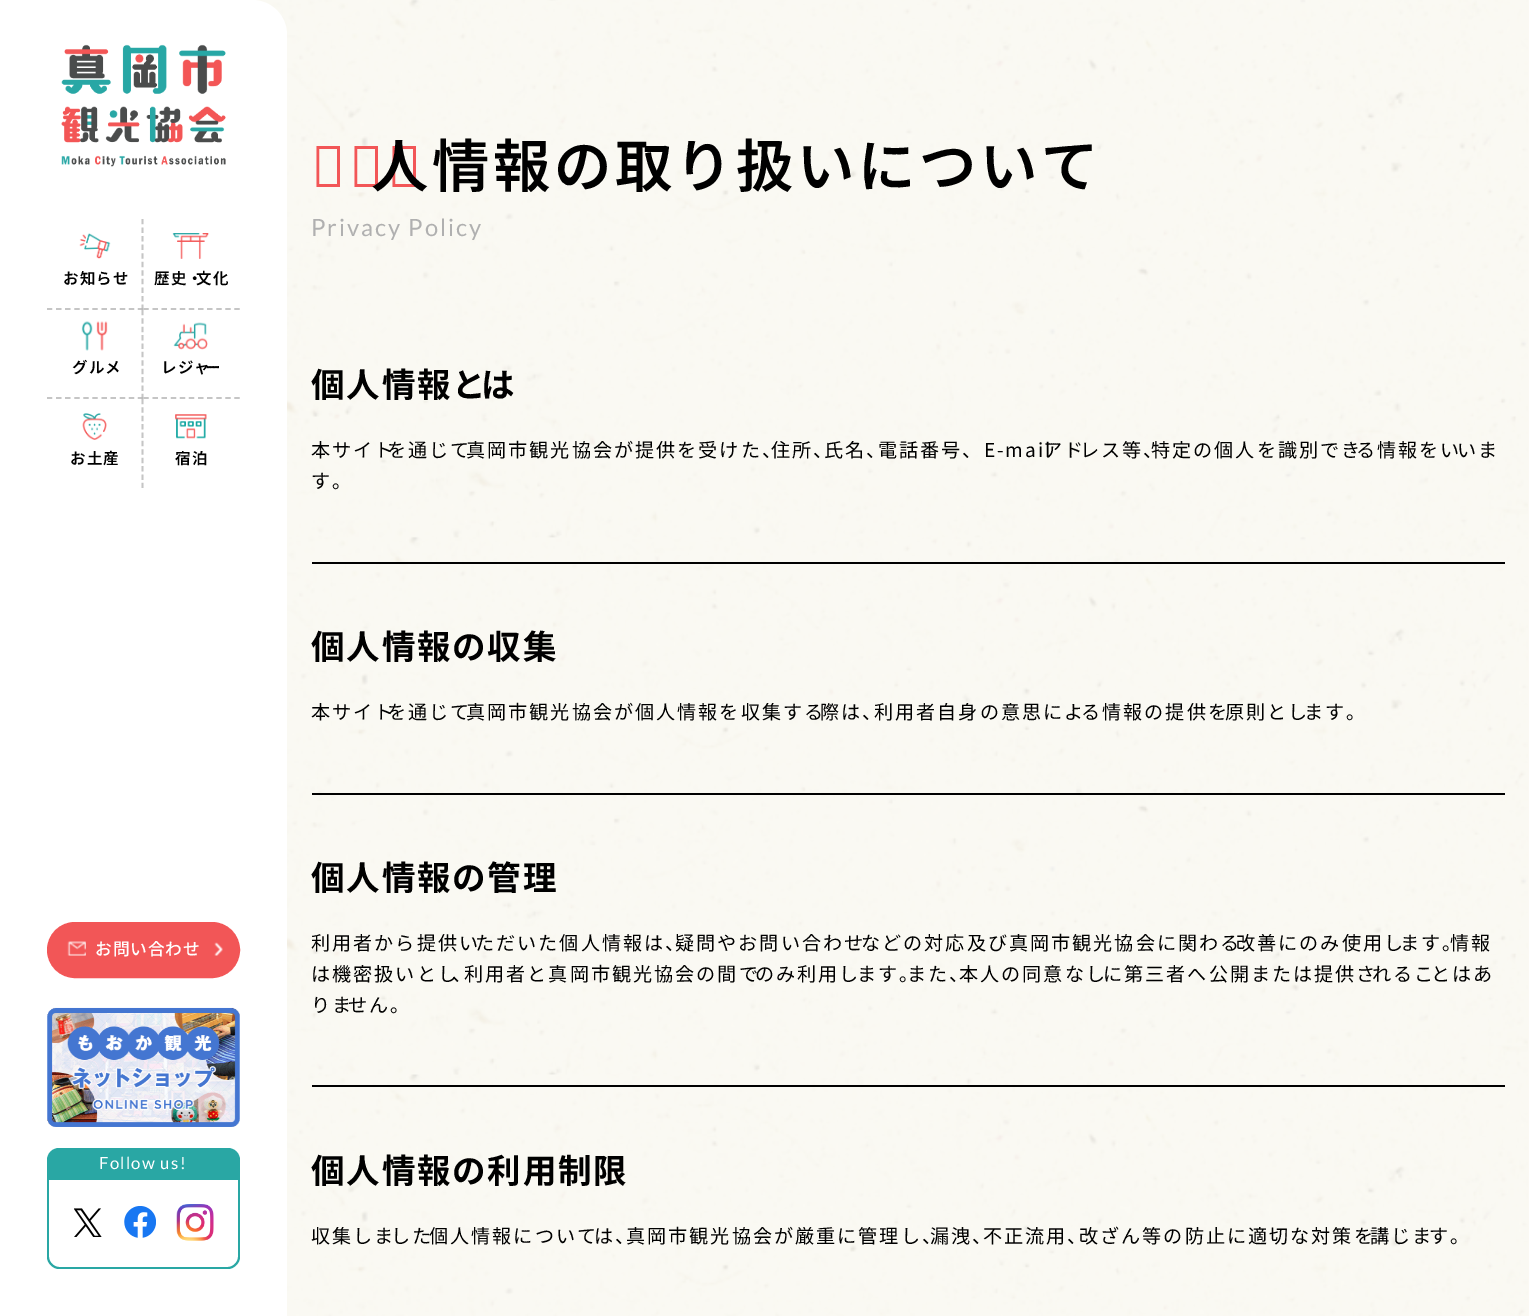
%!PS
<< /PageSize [1529 1316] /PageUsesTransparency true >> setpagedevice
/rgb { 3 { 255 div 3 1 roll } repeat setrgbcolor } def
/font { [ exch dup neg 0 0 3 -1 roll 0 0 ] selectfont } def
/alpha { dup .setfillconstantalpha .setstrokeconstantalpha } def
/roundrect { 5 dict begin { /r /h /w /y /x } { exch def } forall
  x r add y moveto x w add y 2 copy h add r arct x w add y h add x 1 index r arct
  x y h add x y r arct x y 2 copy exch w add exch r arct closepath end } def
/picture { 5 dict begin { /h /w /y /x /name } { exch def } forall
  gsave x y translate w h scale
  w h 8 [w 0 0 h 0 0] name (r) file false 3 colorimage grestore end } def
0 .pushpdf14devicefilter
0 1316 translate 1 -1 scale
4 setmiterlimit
251 249 243 rgb
0 0 1529 1316 rectfill
(img/1.rgb) 252 0 1276 1316 picture
255 255 255 rgb
0 0 moveto 252 0 lineto 271.5 0 287 15.5 287 35 curveto 287 1316 lineto 0 1316 lineto closepath fill
(img/2.rgb) 61 44 165 123 picture
197 197 197 rgb
1.8 setlinewidth
[5.25 3.32] 0 setdash
142.5 219 moveto 142.5 310 lineto stroke
0.8 alpha
183 183 183 rgb
[5.25 3.85] 0 setdash
47 309 moveto 143.5 309 lineto stroke
1 alpha
(img/3.rgb) 79 233 32 26 picture
197 197 197 rgb
143.5 309 moveto 240 309 lineto stroke
(img/4.rgb) 172 233 37 26 picture
[5.25 3.15] 0 setdash
142.5 310 moveto 142.5 399 lineto stroke
0.8 alpha
183 183 183 rgb
[5.25 3.85] 0 setdash
47 398 moveto 143.5 398 lineto stroke
1 alpha
(img/5.rgb) 81 321 27 30 picture
197 197 197 rgb
143.5 398 moveto 240 398 lineto stroke
(img/6.rgb) 173 322 35 28 picture
[5.25 3.15] 0 setdash
142.5 399 moveto 142.5 488 lineto stroke
(img/7.rgb) 82 413 25 27 picture
(img/8.rgb) 175 414 32 25 picture
242 86 87 rgb
48 923 191 54 27 roundrect gsave fill grestore
2 setlinewidth
[] 0 setdash
stroke
(img/9.rgb) 67 941 19 15 picture
(img/10.rgb) 214 942 9 14 picture
(img/11.rgb) 47 1007 193 120 picture
41 167 164 rgb
59 1148 moveto 228 1148 lineto 234.5 1148 240 1153.5 240 1160 curveto 240 1180 lineto 47 1180 lineto 47 1160 lineto 47 1153.5 52.5 1148 59 1148 curveto closepath fill
47 1180 moveto 240 1180 lineto 240 1257 lineto 240 1263 234 1269 228 1269 curveto 59 1269 lineto 53 1269 47 1263 47 1257 curveto closepath 49 1180 moveto 238 1180 lineto 238 1257 lineto 238 1262 233 1267 228 1267 curveto 59 1267 lineto 54 1267 49 1262 49 1257 curveto closepath eofill
(img/12.rgb) 74 1208 28 29 picture
(img/13.rgb) 124 1206 32 32 picture
(img/14.rgb) 176 1204 38 37 picture
[
  [312 562 1193 2 0 0 0]
  [312 793 1193 2 0 0 0]
  [312 1085 1193 2 0 0 0]
] { aload pop rgb rectfill } forall
/NotoSansJP-SemiBold 15.5 font
63 284 moveto 1 0 (お知らせ) ashow
154 284 moveto 1 0 (歴史・) ashow
196 284 moveto 1 0 (文化) ashow
72 373 moveto 1 0 (グルメ) ashow
161 373 moveto 1 0 (レジャ) ashow
205 373 moveto 1 0 (ー) ashow
70 464 moveto 1 0 (お土産) ashow
175 464 moveto 1 0 (宿泊) ashow
/NotoSansJP-Medium 16.75 font
255 255 255 rgb
95 955 moveto 0.75 0 (お問い合わせ) ashow
/Lato-Regular 16.75 font
99 1169 moveto 1.25 0 (Follow us!) ashow
/NotoSans-Thin 57.4 font
242 86 87 rgb
311 187 moveto 3.5 0 (個) ashow
/NotoSansJP-SemiBold 57.4 font
0 0 0 rgb
371 187 moveto 3.5 0 (人情報の取り扱いについて) ashow
/Lato-Regular 23.75 font
176 176 176 rgb
311 236 moveto 1.9 0 (Privacy Policy) ashow
/NotoSansJP-Bold 33.5 font
0 0 0 rgb
311 397 moveto 1.75 0 (個人情報と) ashow
481 397 moveto 1.75 0 (は) ashow
/NotoSansJP-Regular 19.12 font
311 457 moveto 2 0 (本サイト) ashow
387 457 moveto 2 0 (を通じて) ashow
466 457 moveto 2 0 (真岡市観光協会が提供を受けた、) ashow
771 457 moveto 2 0 (住所、) ashow
824 457 moveto 2 0 (氏名、) ashow
878 457 moveto 2 0 (電話番号、E-mail) ashow
1043 457 moveto 2 0 (アド) ashow
1080 457 moveto 2 0 (レス等、) ashow
1151 457 moveto 2 0 (特定の個人を識別でき) ashow
1356 457 moveto 2 0 (る情報をい) ashow
1457 457 moveto 2 0 (いま) ashow
311 488 moveto 2 0 (す。) ashow
/NotoSansJP-Bold 33.5 font
311 659 moveto 1.75 0 (個人情報の収集) ashow
/NotoSansJP-Regular 19.12 font
311 719 moveto 2 0 (本サイト) ashow
387 719 moveto 2 0 (を通じて) ashow
466 719 moveto 2 0 (真岡市観光協会が個人情報を収集する) ashow
820 719 moveto 2 0 (際は、) ashow
874 719 moveto 2 0 (利用者自身の意思によ) ashow
1081 719 moveto 2 0 (る情報の提供を) ashow
1225 719 moveto 2 0 (原則とし) ashow
1304 719 moveto 2 0 (ます。) ashow
/NotoSansJP-Bold 33.5 font
311 890 moveto 1.75 0 (個人情報の管理) ashow
/NotoSansJP-Regular 19.12 font
311 950 moveto 2 0 (利用者から提供い) ashow
475 950 moveto 2 0 (ただいた個人情報は、) ashow
675 950 moveto 2 0 (疑問やお問い合わせ) ashow
861 950 moveto 2 0 (などの対応及び真岡市観光協会に関わる) ashow
1236 950 moveto 2 0 (改善にのみ使用し) ashow
1400 950 moveto 2 0 (ます。) ashow
1450 950 moveto 2 0 (情報) ashow
311 981 moveto 2 0 (は機密扱いとし) ashow
452 981 moveto 2 0 (、) ashow
464 981 moveto 2 0 (利用者と真岡市観光協会の間で) ashow
755 981 moveto 2 0 (のみ利用し) ashow
857 981 moveto 2 0 (ます。) ashow
907 981 moveto 2 0 (また、) ashow
959 981 moveto 2 0 (本人の同意なし) ashow
1103 981 moveto 2 0 (に第三者へ公開または提供さ) ashow
1372 981 moveto 2 0 (れるこ) ashow
1431 981 moveto 2 0 (とはあ) ashow
311 1012 moveto 2 0 (りま) ashow
348 1012 moveto 2 0 (せん。) ashow
/NotoSansJP-Bold 33.5 font
311 1183 moveto 1.75 0 (個人情報の利用制限) ashow
/NotoSansJP-Regular 19.12 font
311 1243 moveto 2 0 (収集しま) ashow
391 1243 moveto 2 0 (した) ashow
429 1243 moveto 2 0 (個人情報について) ashow
594 1243 moveto 2 0 (は、) ashow
626 1243 moveto 2 0 (真岡市観光協会が厳重に管理し、) ashow
930 1243 moveto 2 0 (漏洩、) ashow
983 1243 moveto 2 0 (不正流用、) ashow
1079 1243 moveto 2 0 (改ざん等の防止に適切な対策を) ashow
1370 1243 moveto 2 0 (講じま) ashow
1429 1243 moveto 2 0 (す。) ashow
.poppdf14devicefilter showpage
